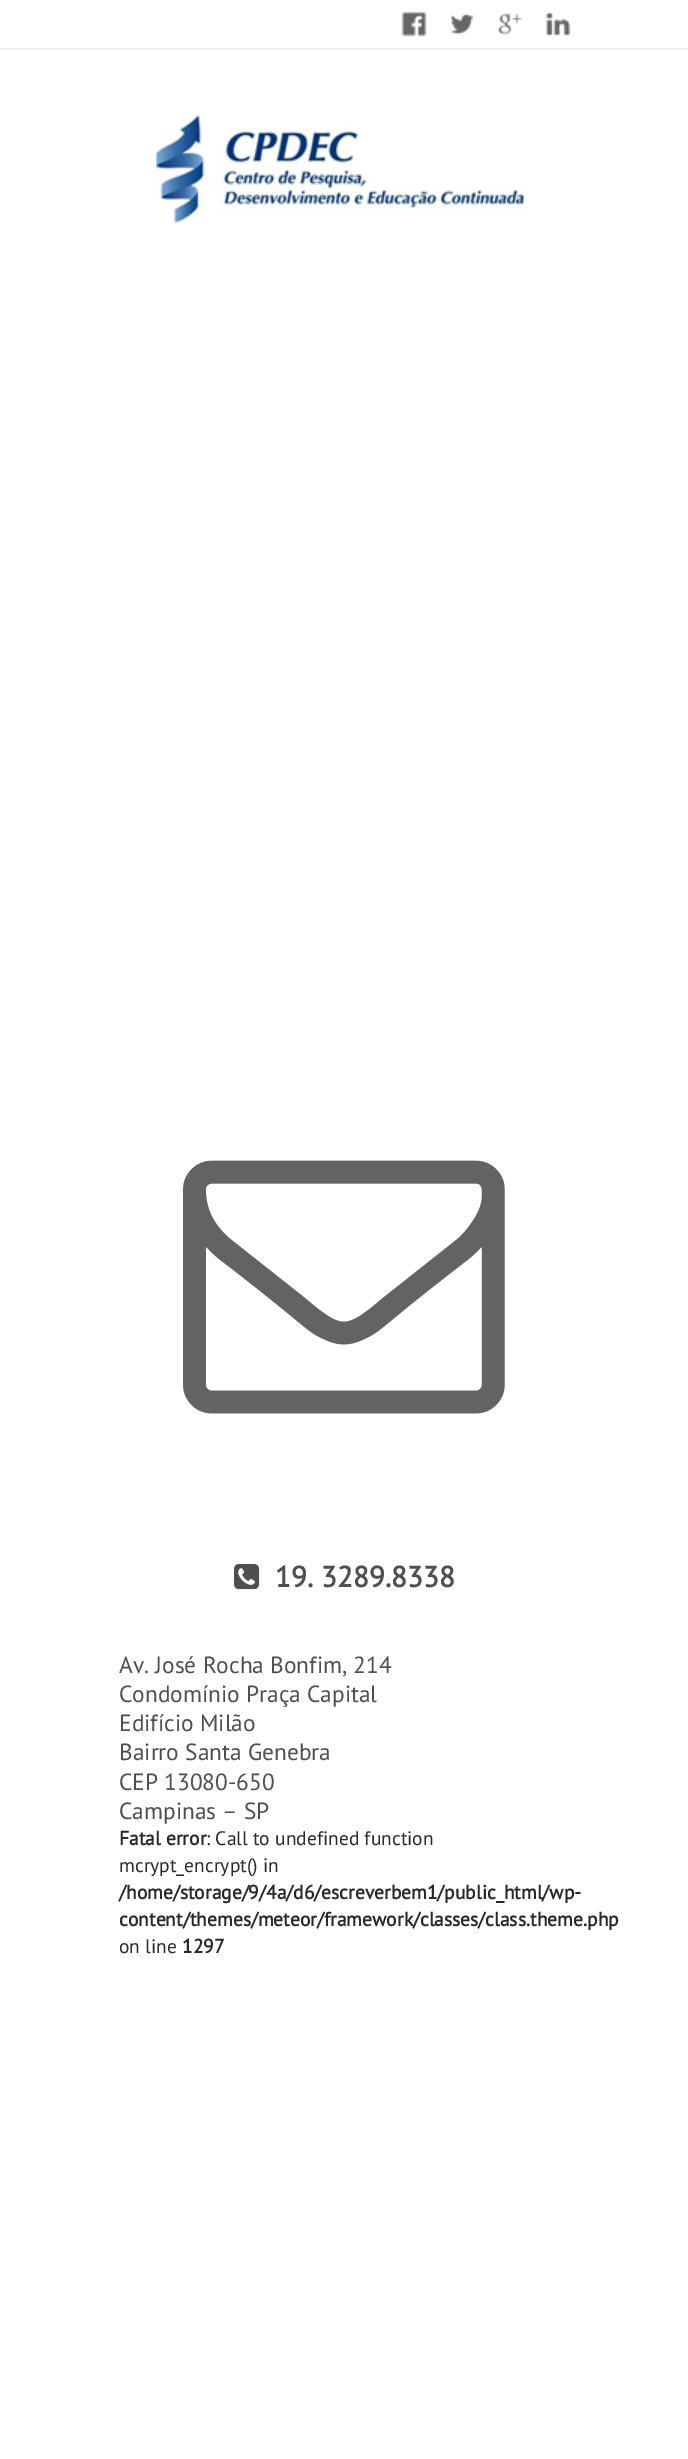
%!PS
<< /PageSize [688 2459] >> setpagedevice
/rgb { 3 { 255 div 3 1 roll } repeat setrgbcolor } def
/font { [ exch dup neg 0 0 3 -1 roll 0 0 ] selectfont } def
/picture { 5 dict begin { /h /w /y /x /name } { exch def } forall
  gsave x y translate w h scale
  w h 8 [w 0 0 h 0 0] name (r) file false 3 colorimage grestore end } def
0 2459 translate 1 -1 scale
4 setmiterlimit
255 255 255 rgb
0 0 688 2459 rectfill
238 238 238 rgb
0 48 688 2 rectfill
(img/1.rgb) 401 11 26 26 picture
(img/2.rgb) 451 13 23 22 picture
(img/3.rgb) 497 13 26 22 picture
(img/4.rgb) 545 12 26 24 picture
(img/5.rgb) 156 115 372 109 picture
(img/6.rgb) 183 1160 322 254 picture
(img/7.rgb) 234 1564 26 26 picture
/PTSans-Bold 29.25 font
79 79 79 rgb
275 1587 moveto (19. 3289.8338) show
/PTSans-Regular 23.4 font
[
  [(Av. José Rocha Bonfim, 214) 119 1673]
  [(Condomínio Praça Capital) 119 1702]
  [(Edifício Milão) 119 1731]
  [(Bairro Santa Genebra) 119 1760]
  [(CEP 13080-650) 119 1790]
  [(Campinas – SP) 119 1819]
] { aload pop moveto show } forall
/PTSans-Bold 19.5 font
41 41 41 rgb
119 1845 moveto (Fatal error) show
/PTSans-Regular 19.5 font
206 1845 moveto (: Call to undefined function) show
119 1872 moveto (mcrypt_encrypt\(\) in) show
/PTSans-Bold 19.5 font
119 1899 moveto (/home/storage/9/4a/d6/escreverbem1/public_html/wp-) show
119 1926 moveto (content/themes/meteor/framework/classes/class.theme.php) show
/PTSans-Regular 19.5 font
119 1953 moveto (on line) show
/PTSans-Bold 19.5 font
182 1953 moveto (1297) show
showpage
